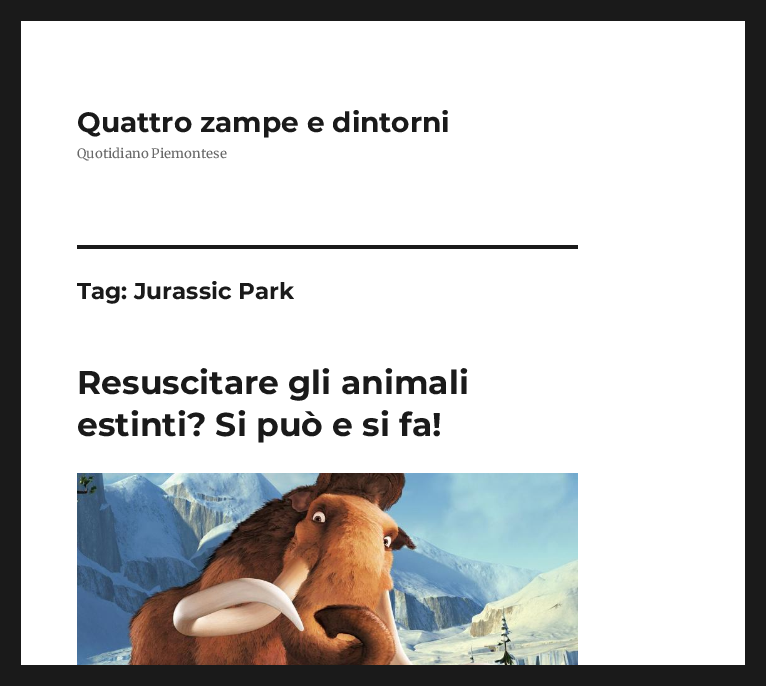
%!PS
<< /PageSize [766 686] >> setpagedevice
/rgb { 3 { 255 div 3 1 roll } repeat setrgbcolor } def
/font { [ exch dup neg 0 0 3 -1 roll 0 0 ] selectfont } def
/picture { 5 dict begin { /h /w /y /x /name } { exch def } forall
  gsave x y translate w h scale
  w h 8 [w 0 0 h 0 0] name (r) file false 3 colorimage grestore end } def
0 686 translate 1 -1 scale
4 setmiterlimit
26 26 26 rgb
0 0 766 686 rectfill
255 255 255 rgb
21 21 724 644 rectfill
26 26 26 rgb
77 245 501 4 rectfill
(img/1.rgb) 77 473 501 192 picture
/Montserrat-Thin 28 font
77 132 moveto (Quattro zampe e dintorni) show
/Merriweather-Regular 13 font
104 104 104 rgb
77 158 moveto (Quotidiano Piemontese) show
/Montserrat-Thin 23 font
26 26 26 rgb
77 299 moveto (Tag: Jurassic Park) show
/Montserrat-Thin 33 font
77 394 moveto (Resuscitare gli animali) show
77 436 moveto (estinti? Si può e si fa!) show
showpage
